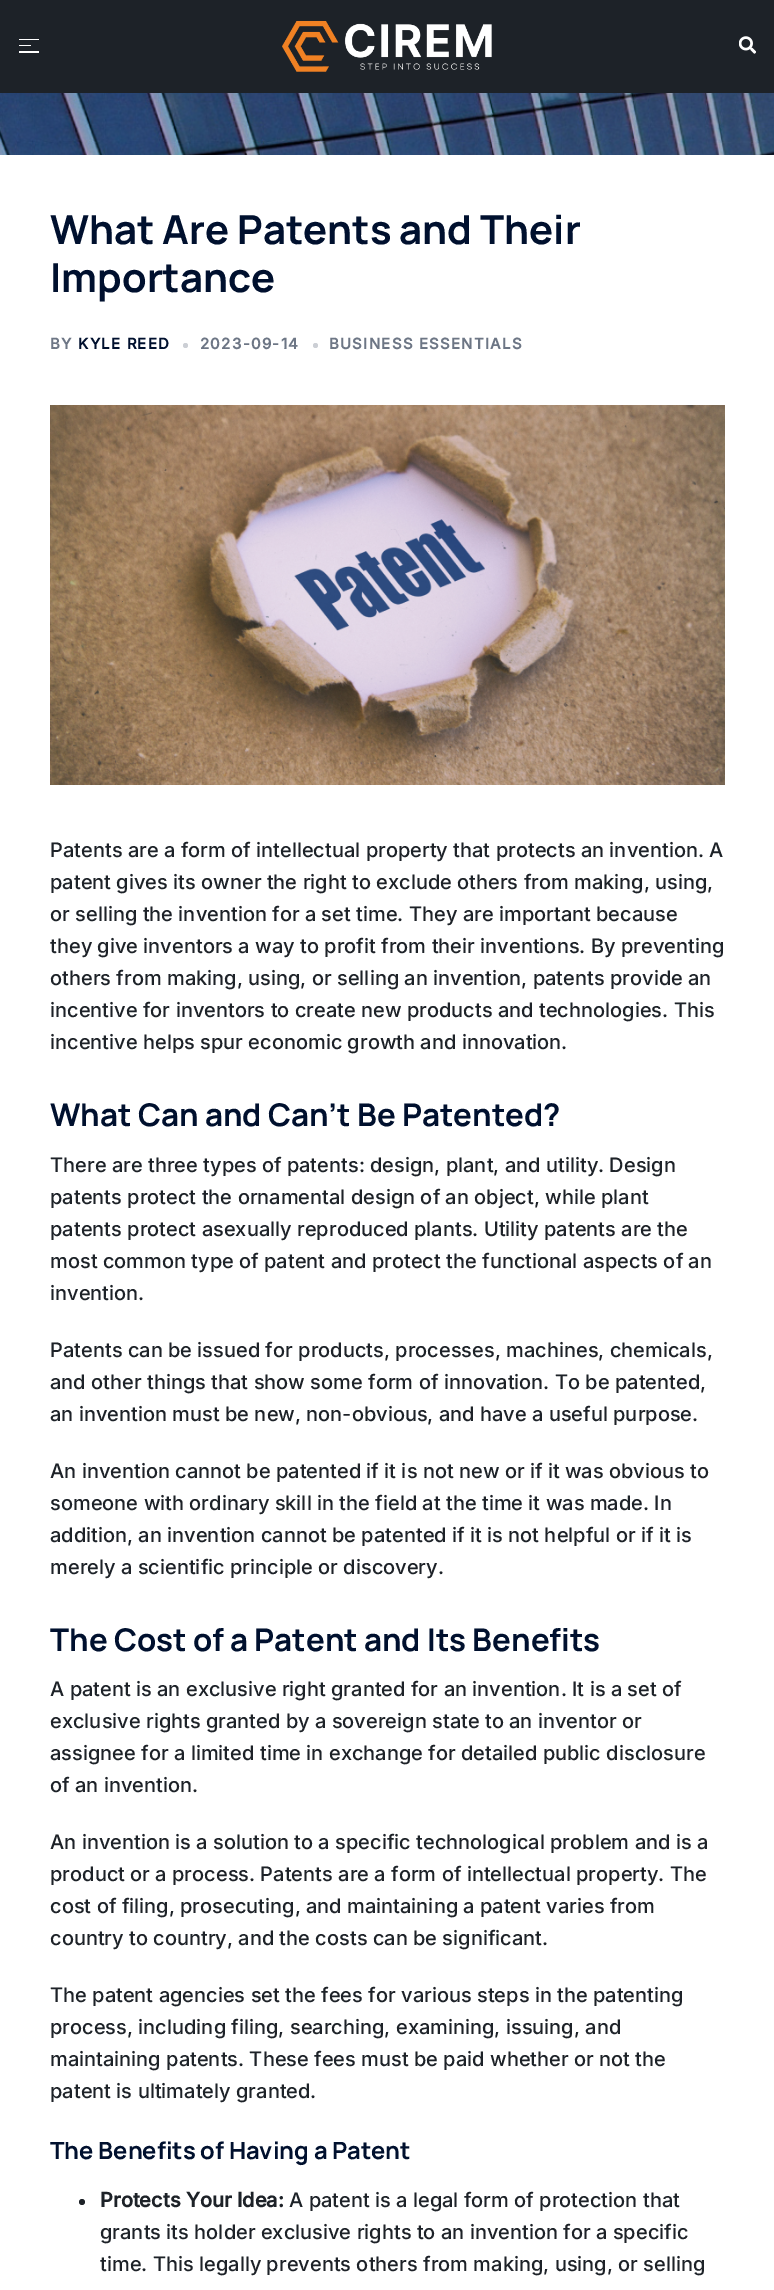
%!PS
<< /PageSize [774 2290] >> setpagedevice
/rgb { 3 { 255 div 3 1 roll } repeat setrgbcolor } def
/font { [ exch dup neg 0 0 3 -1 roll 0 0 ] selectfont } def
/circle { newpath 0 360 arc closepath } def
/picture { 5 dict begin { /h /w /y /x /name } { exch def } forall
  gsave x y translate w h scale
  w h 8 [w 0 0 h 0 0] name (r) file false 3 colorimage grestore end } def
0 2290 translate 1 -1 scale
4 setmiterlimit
255 255 255 rgb
0 0 774 2290 rectfill
(img/1.rgb) 0 93 774 62 picture
[
  [0 0 774 93 29 34 40]
  [19 39 20 1 255 255 255]
  [19 45 12 1 255 255 255]
  [19 51 20 2 255 255 255]
] { aload pop rgb rectfill } forall
(img/2.rgb) 282 20 210 52 picture
(img/3.rgb) 739 36 17 18 picture
204 207 213 rgb
185.5 345.5 2.5 circle fill
315.5 345.5 2.5 circle fill
(img/4.rgb) 50 405 675 380 picture
29 34 40 rgb
82 2202 3 circle fill
/Manrope-ExtraLight 40 font
0 16 46 rgb
50 244 moveto (What Are Patents and Their) show
50 292 moveto (Importance) show
/Inter-Bold 15 font
109 118 133 rgb
50 349 moveto 1.25 0 (BY) ashow
0 16 46 rgb
78 349 moveto 1.25 0 (KYLE REED) ashow
109 118 133 rgb
200 349 moveto 1.25 0 (2023-09-14) ashow
329 349 moveto 1.25 0 (BUSINESS ESSENTIALS) ashow
/Inter-Medium 20 font
29 34 40 rgb
[
  [(Patents are a form of intellectual property that protects an invention. A) 50 857]
  [(patent gives its owner the right to exclude others from making, using,) 50 889]
  [(or selling the invention for a set time. They are important because) 50 921]
  [(they give inventors a way to profit from their inventions. By preventing) 50 953]
  [(others from making, using, or selling an invention, patents provide an) 50 985]
  [(incentive for inventors to create new products and technologies. This) 50 1017]
  [(incentive helps spur economic growth and innovation.) 50 1049]
] { aload pop moveto show } forall
/Manrope-ExtraLight 31.25 font
0 16 46 rgb
50 1126 moveto (What Can and Can’t Be Patented?) show
/Inter-Medium 20 font
29 34 40 rgb
[
  [(There are three types of patents: design, plant, and utility. Design) 50 1172]
  [(patents protect the ornamental design of an object, while plant) 50 1204]
  [(patents protect asexually reproduced plants. Utility patents are the) 50 1236]
  [(most common type of patent and protect the functional aspects of an) 50 1268]
  [(invention.) 50 1300]
  [(Patents can be issued for products, processes, machines, chemicals,) 50 1357]
  [(and other things that show some form of innovation. To be patented,) 50 1389]
  [(an invention must be new, non-obvious, and have a useful purpose.) 50 1421]
  [(An invention cannot be patented if it is not new or if it was obvious to) 50 1478]
  [(someone with ordinary skill in the field at the time it was made. In) 50 1510]
  [(addition, an invention cannot be patented if it is not helpful or if it is) 50 1542]
  [(merely a scientific principle or discovery.) 50 1574]
] { aload pop moveto show } forall
/Manrope-ExtraLight 31.25 font
0 16 46 rgb
50 1651 moveto (The Cost of a Patent and Its Benefits) show
/Inter-Medium 20 font
29 34 40 rgb
[
  [(A patent is an exclusive right granted for an invention. It is a set of) 50 1696]
  [(exclusive rights granted by a sovereign state to an inventor or) 50 1728]
  [(assignee for a limited time in exchange for detailed public disclosure) 50 1760]
  [(of an invention.) 50 1792]
  [(An invention is a solution to a specific technological problem and is a) 50 1849]
  [(product or a process. Patents are a form of intellectual property. The) 50 1881]
  [(cost of filing, prosecuting, and maintaining a patent varies from) 50 1913]
  [(country to country, and the costs can be significant.) 50 1945]
  [(The patent agencies set the fees for various steps in the patenting) 50 2002]
  [(process, including filing, searching, examining, issuing, and) 50 2034]
  [(maintaining patents. These fees must be paid whether or not the) 50 2066]
  [(patent is ultimately granted.) 50 2098]
] { aload pop moveto show } forall
/Manrope-ExtraLight 23.75 font
0 16 46 rgb
50 2159 moveto (The Benefits of Having a Patent) show
/Inter-Bold 20 font
29 34 40 rgb
100 2207 moveto (Protects Your Idea:) show
/Inter-Medium 20 font
[
  [(A patent is a legal form of protection that) 289 2207]
  [(grants its holder exclusive rights to an invention for a specific) 100 2239]
  [(time. This legally prevents others from making, using, or selling) 100 2271]
] { aload pop moveto show } forall
showpage
